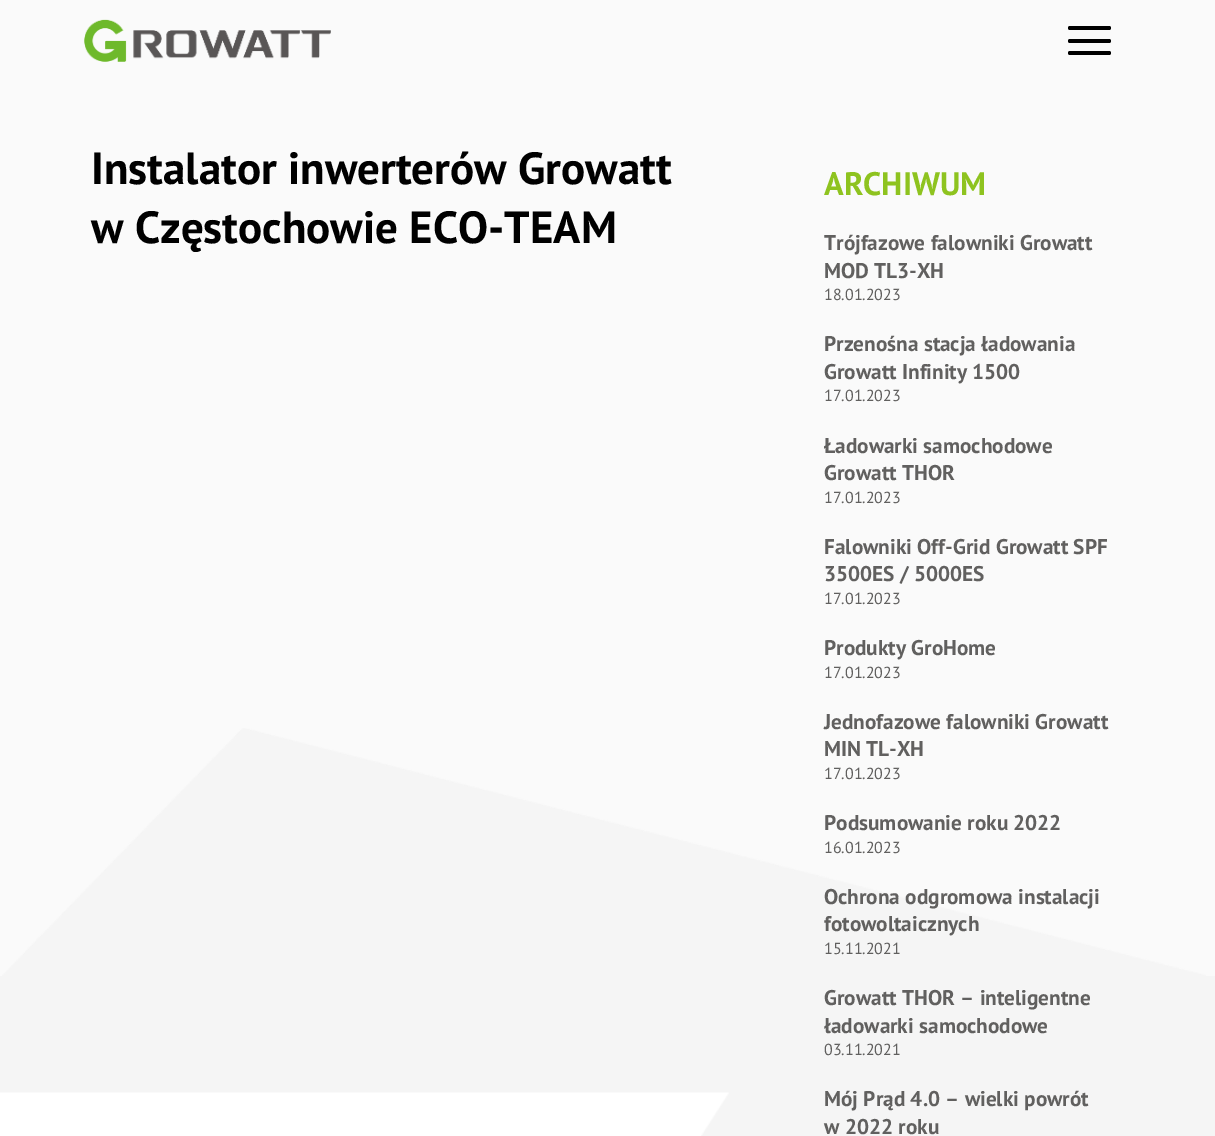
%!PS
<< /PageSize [1215 1136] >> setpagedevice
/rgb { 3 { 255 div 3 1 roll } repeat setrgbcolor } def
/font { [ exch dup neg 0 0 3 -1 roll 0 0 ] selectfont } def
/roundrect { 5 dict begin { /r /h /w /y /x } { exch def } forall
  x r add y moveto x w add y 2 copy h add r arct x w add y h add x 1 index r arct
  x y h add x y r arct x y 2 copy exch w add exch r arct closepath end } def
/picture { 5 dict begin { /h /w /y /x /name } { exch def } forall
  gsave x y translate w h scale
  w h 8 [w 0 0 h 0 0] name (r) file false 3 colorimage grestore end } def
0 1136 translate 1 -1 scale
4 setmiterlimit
250 250 250 rgb
0 0 1215 1136 rectfill
(img/1.rgb) 84 19 247 43 picture
0 0 0 rgb
1068 26 43 4 2 roundrect fill
1068 39 43 4 2 roundrect fill
1068 51 43 4 2 roundrect fill
(img/2.rgb) 2 728 1204 248 picture
245 245 245 rgb
0 976 1215 160 rectfill
(img/3.rgb) 0 1092 729 44 picture
/PTSans-Bold 45 font
0 0 0 rgb
91 184 moveto (Instalator inwerterów Growatt) show
91 243 moveto (w Częstochowie ECO-TEAM) show
/PTSans-Bold 32.5 font
142 195 31 rgb
824 195 moveto (ARCHIWUM) show
/PTSans-Bold 21.25 font
97 96 95 rgb
824 250 moveto (Trójfazowe falowniki Growatt) show
824 278 moveto (MOD TL3-XH) show
/PTSans-Regular 16 font
824 300 moveto (18.01.2023) show
/PTSans-Bold 21.25 font
824 351 moveto (Przenośna stacja ładowania) show
824 379 moveto (Growatt Infinity 1500) show
/PTSans-Regular 16 font
824 401 moveto (17.01.2023) show
/PTSans-Bold 21.25 font
824 453 moveto (Ładowarki samochodowe) show
824 480 moveto (Growatt THOR) show
/PTSans-Regular 16 font
824 503 moveto (17.01.2023) show
/PTSans-Bold 21.25 font
824 554 moveto (Falowniki Off-Grid Growatt SPF) show
824 581 moveto (3500ES / 5000ES) show
/PTSans-Regular 16 font
824 604 moveto (17.01.2023) show
/PTSans-Bold 21.25 font
824 655 moveto (Produkty GroHome) show
/PTSans-Regular 16 font
824 678 moveto (17.01.2023) show
/PTSans-Bold 21.25 font
824 729 moveto (Jednofazowe falowniki Growatt) show
824 756 moveto (MIN TL-XH) show
/PTSans-Regular 16 font
824 779 moveto (17.01.2023) show
/PTSans-Bold 21.25 font
824 830 moveto (Podsumowanie roku 2022) show
/PTSans-Regular 16 font
824 853 moveto (16.01.2023) show
/PTSans-Bold 21.25 font
824 904 moveto (Ochrona odgromowa instalacji) show
824 931 moveto (fotowoltaicznych) show
/PTSans-Regular 16 font
824 954 moveto (15.11.2021) show
/PTSans-Bold 21.25 font
824 1005 moveto (Growatt THOR – inteligentne) show
824 1033 moveto (ładowarki samochodowe) show
/PTSans-Regular 16 font
824 1055 moveto (03.11.2021) show
/PTSans-Bold 21.25 font
824 1106 moveto (Mój Prąd 4.0 – wielki powrót) show
824 1134 moveto (w 2022 roku) show
showpage
